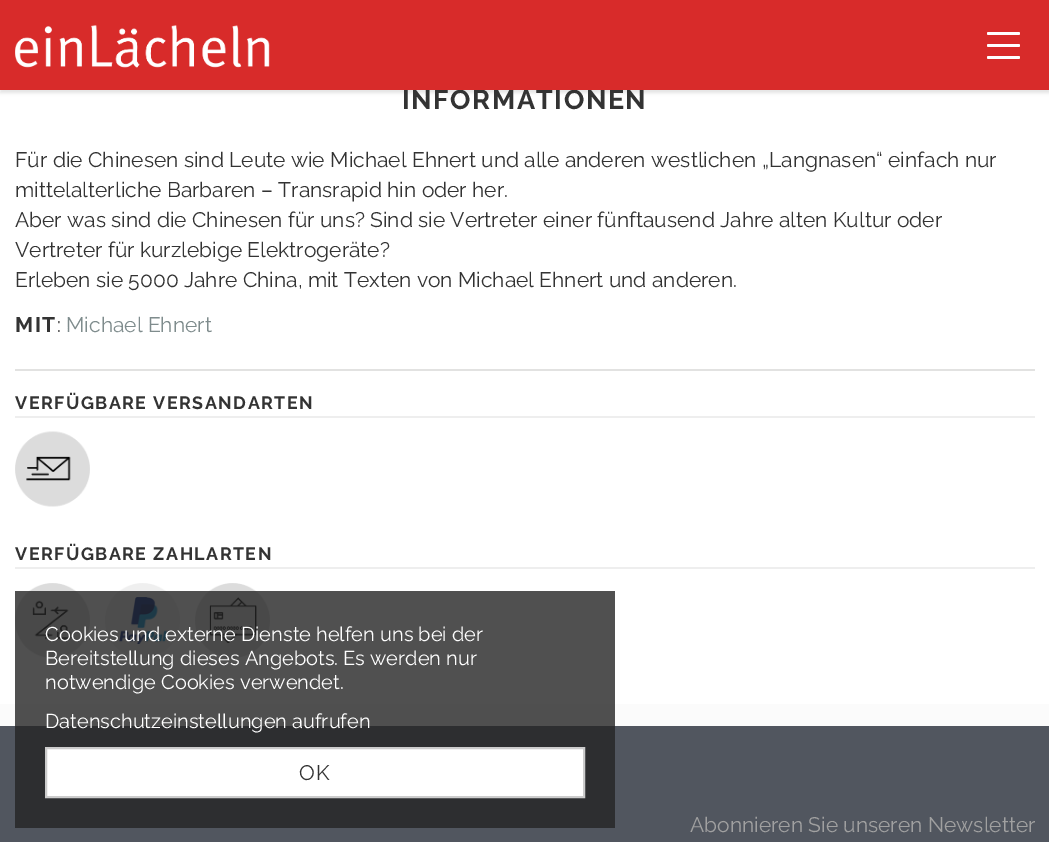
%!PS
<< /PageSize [1049 842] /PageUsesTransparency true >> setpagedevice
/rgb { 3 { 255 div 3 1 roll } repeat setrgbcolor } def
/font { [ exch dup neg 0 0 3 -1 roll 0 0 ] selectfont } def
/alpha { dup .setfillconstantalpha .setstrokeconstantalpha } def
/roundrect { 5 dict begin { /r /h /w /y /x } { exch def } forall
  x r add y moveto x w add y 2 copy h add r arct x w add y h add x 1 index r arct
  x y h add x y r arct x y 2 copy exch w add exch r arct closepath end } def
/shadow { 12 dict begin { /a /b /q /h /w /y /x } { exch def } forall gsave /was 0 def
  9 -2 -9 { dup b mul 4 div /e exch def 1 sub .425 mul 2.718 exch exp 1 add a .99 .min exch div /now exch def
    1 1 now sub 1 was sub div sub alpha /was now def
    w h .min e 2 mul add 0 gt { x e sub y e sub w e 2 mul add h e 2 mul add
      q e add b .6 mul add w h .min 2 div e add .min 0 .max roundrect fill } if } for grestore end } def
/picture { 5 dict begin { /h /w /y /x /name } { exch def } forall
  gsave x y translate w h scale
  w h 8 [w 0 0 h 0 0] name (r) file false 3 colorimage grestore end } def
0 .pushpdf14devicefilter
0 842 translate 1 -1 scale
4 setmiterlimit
255 255 255 rgb
0 0 1049 842 rectfill
gsave 0 704 moveto 1049 704 lineto 1049 726 lineto 0 726 lineto closepath clip newpath
<< /ShadingType 2 /ColorSpace /DeviceRGB /Coords [525 -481 525 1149] /Extend [true true] /Function << /FunctionType 2 /Domain [0 1] /C0 [0.937 0.937 0.937] /C1 [1 1 1] /N 1 >> >> shfill grestore
0 0 0 rgb
0 3 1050 90 0 1.5 0.1 shadow
226 226 225 rgb
15 369 1020 2 rectfill
238 238 238 rgb
15 416 1020 2 rectfill
(img/2.rgb) 15 431 75 76 picture
15 567 1020 2 rectfill
(img/3.rgb) 15 583 75 75 picture
(img/4.rgb) 105 583 75 75 picture
(img/5.rgb) 195 583 75 75 picture
81 86 95 rgb
0 726 1049 116 rectfill
0.8 alpha
36 36 36 rgb
15 591 600 237 rectfill
1 alpha
255 255 255 rgb
46 748 moveto 584 748 lineto 584 797 lineto 46 797 lineto closepath gsave fill grestore
204 204 204 rgb
2 setlinewidth
stroke
/Raleway-Bold 27 font
51 51 51 rgb
402 109 moveto 1.5 0 (INFORMATIONEN) ashow
216 43 42 rgb
0 0 1049 90 rectfill
255 255 255 rgb
987 56 33 3 1.5 roundrect fill
987 44 33 3 1.5 roundrect fill
987 32 33 3 1.5 roundrect fill
(img/1.rgb) 15 25 255 43 picture
/Raleway-Regular 21 font
51 51 51 rgb
[
  [(Für die Chinesen sind Leute wie Michael Ehnert und alle anderen westlichen „Langnasen“ einfach nur) 15 167]
  [(mittelalterliche Barbaren – Transrapid hin oder her.) 15 197]
  [(Aber was sind die Chinesen für uns? Sind sie Vertreter einer fünftausend Jahre alten Kultur oder) 15 227]
  [(Vertreter für kurzlebige Elektrogeräte?) 15 257]
  [(Erleben sie 5000 Jahre China, mit Texten von Michael Ehnert und anderen.) 15 287]
] { aload pop moveto show } forall
/Raleway-Bold 21 font
15 332 moveto 1.5 0 (MIT) ashow
/Raleway-Regular 21 font
57 332 moveto (:) show
127 140 141 rgb
66 332 moveto (Michael Ehnert) show
/Raleway-Bold 17.8 font
51 51 51 rgb
15 409 moveto 1.5 0 (VERFÜGBARE VERSANDARTEN) ashow
15 560 moveto 1.5 0 (VERFÜGBARE ZAHLARTEN) ashow
/Raleway-Regular 20 font
255 255 255 rgb
[
  [(Cookies und externe Dienste helfen uns bei der) 45 641]
  [(Bereitstellung dieses Angebots. Es werden nur) 45 665]
  [(notwendige Cookies verwendet.) 45 689]
  [(Datenschutzeinstellungen aufrufen) 45 728]
] { aload pop moveto show } forall
/Raleway-Regular 21 font
51 51 51 rgb
299 780 moveto 1.5 0 (OK) ashow
160 160 160 rgb
690 832 moveto (Abonnieren Sie unseren Newsletter) show
.poppdf14devicefilter showpage
